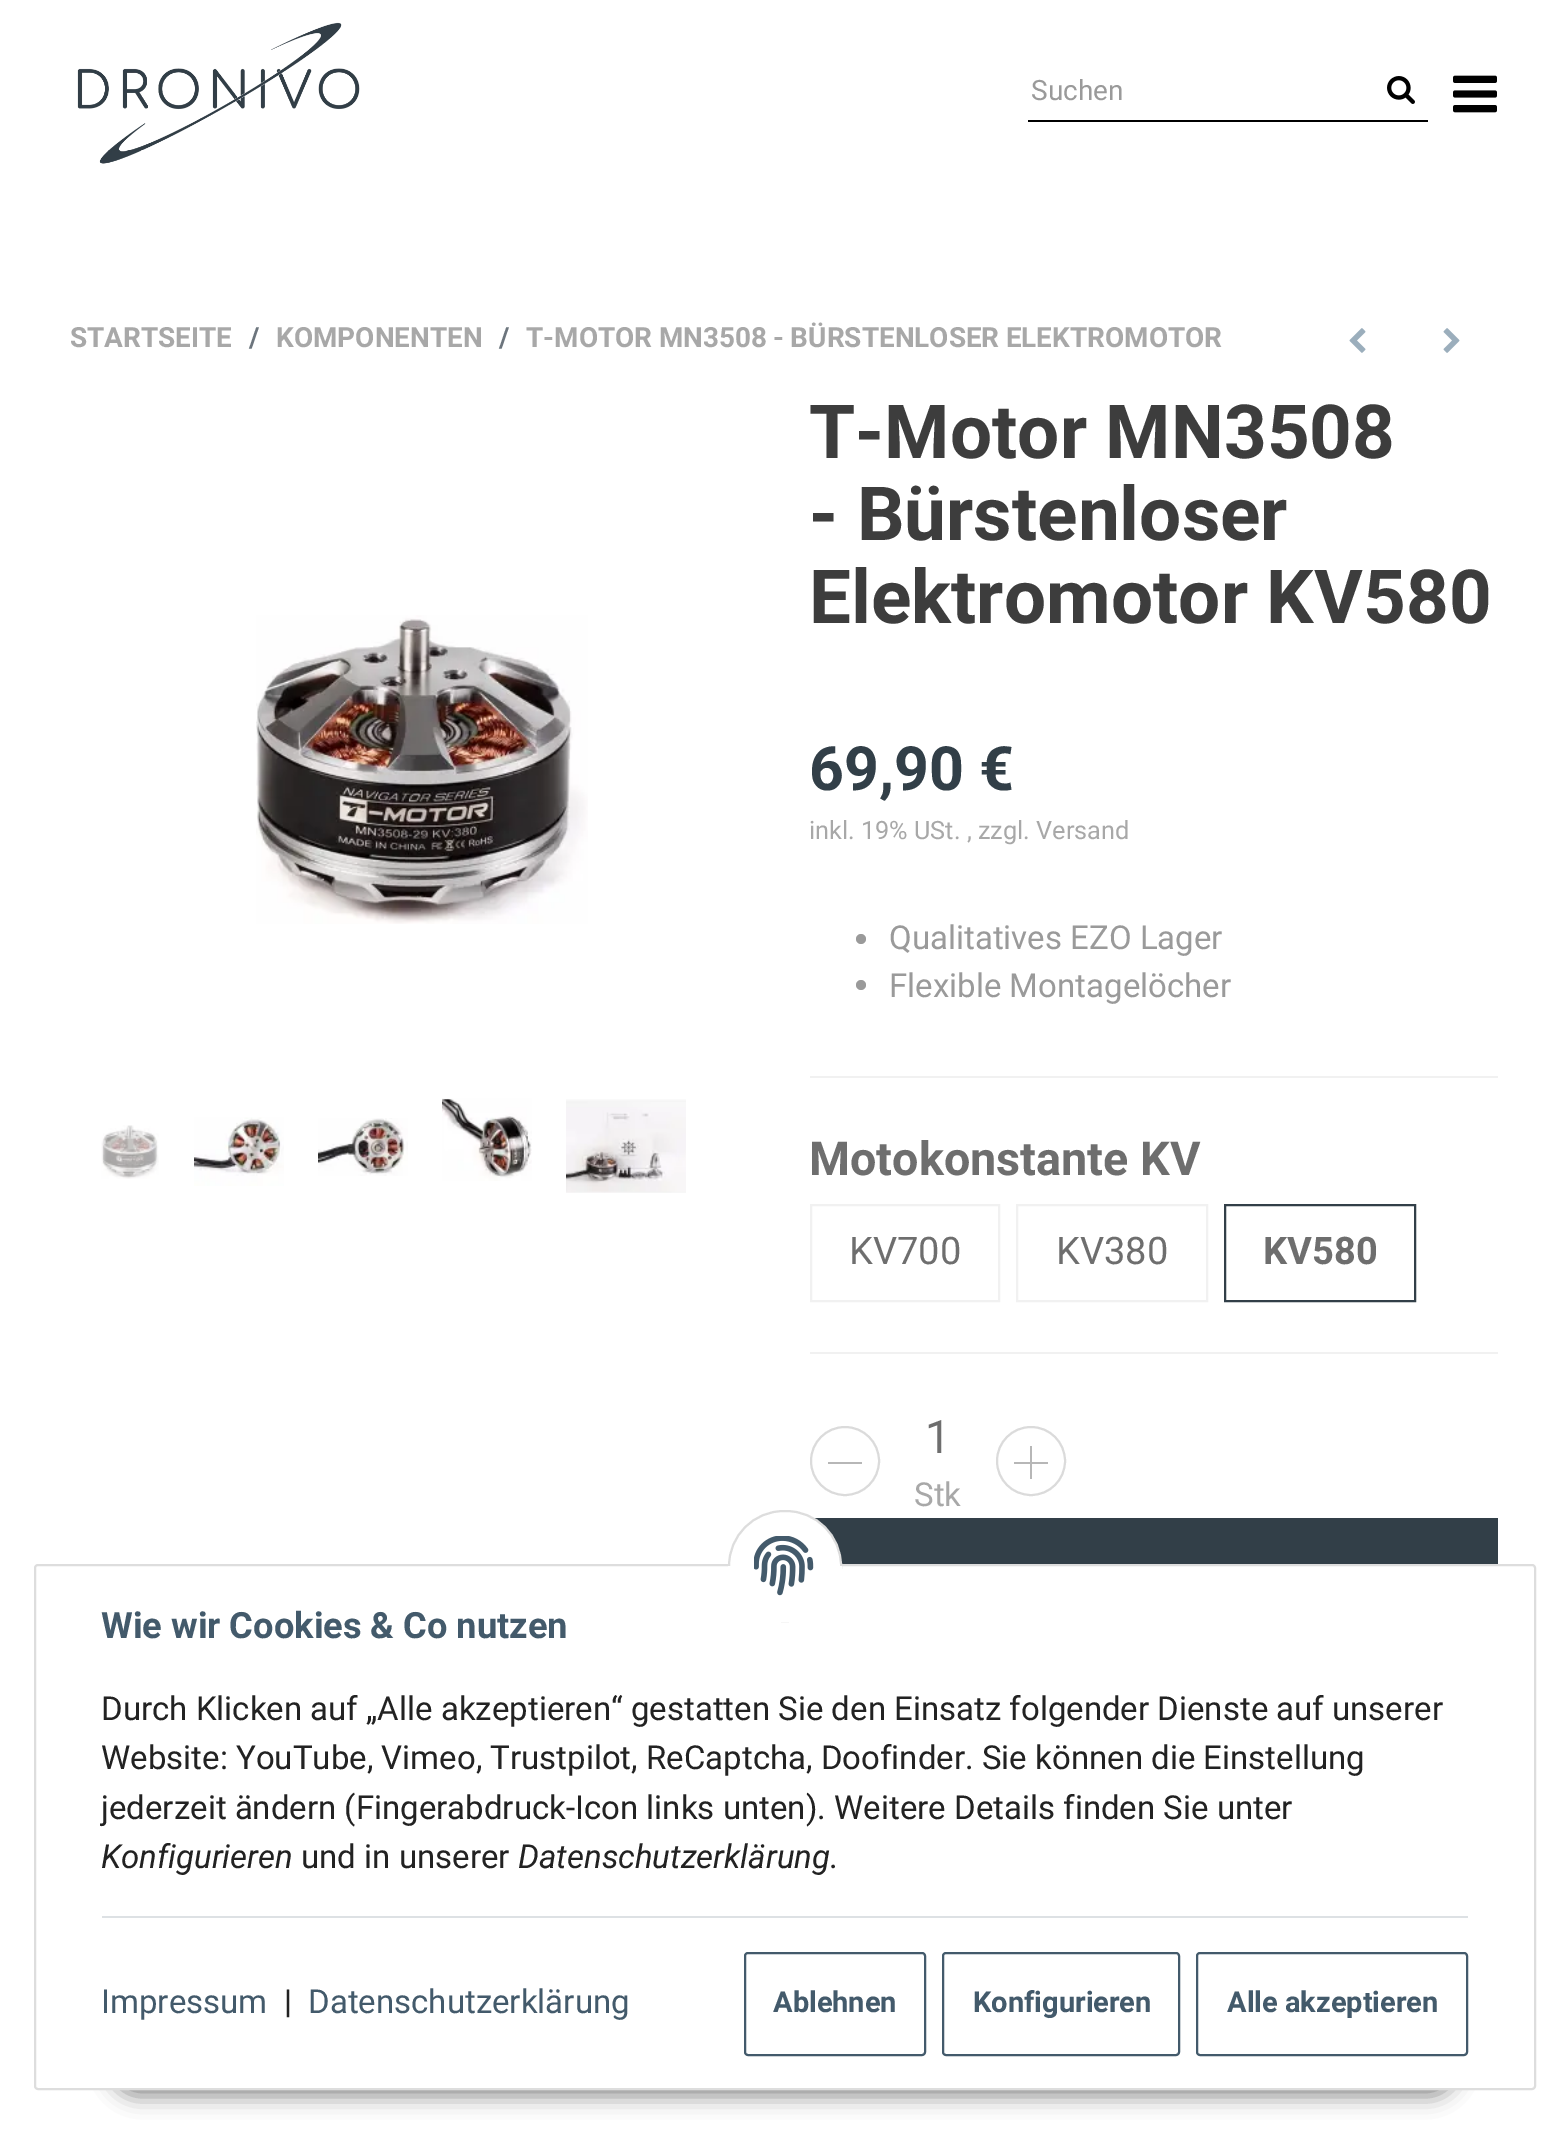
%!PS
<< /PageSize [1567 2156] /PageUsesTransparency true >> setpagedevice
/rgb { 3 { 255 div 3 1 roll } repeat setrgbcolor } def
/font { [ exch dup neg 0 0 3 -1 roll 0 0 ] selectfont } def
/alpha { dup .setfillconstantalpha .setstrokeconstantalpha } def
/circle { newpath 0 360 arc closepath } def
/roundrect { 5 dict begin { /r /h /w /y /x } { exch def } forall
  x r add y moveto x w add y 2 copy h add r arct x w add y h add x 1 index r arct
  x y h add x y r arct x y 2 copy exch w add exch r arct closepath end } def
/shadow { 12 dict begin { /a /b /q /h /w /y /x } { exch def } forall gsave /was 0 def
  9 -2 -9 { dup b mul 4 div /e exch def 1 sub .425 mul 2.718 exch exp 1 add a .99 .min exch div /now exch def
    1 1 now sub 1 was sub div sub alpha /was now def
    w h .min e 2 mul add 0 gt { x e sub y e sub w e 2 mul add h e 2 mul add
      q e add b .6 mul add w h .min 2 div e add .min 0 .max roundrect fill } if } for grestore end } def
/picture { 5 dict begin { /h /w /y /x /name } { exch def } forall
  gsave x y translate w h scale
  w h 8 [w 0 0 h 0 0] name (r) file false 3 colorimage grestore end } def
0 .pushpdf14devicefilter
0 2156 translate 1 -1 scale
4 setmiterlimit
255 255 255 rgb
0 0 1567 2156 rectfill
(img/1.rgb) 77 22 283 142 picture
0 0 0 rgb
1028 120 400 2 rectfill
(img/2.rgb) 1387 76 28 28 picture
(img/3.rgb) 1453 75 44 38 picture
(img/4.rgb) 1349 328 17 25 picture
(img/5.rgb) 1443 328 17 25 picture
(img/6.rgb) 256 615 332 309 picture
(img/7.rgb) 101 1125 58 54 picture
(img/8.rgb) 194 1117 90 69 picture
(img/9.rgb) 318 1118 90 58 picture
(img/10.rgb) 442 1098 90 83 picture
(img/11.rgb) 566 1099 120 94 picture
154 154 154 rgb
861 939 5 circle fill
861 985 5 circle fill
241 241 241 rgb
810 1076 688 2 rectfill
2 setlinewidth
811 1205 188 96 rectstroke
1017 1205 190 96 rectstroke
50 63 72 rgb
1225 1205 190 96 rectstroke
241 241 241 rgb
810 1352 688 2 rectfill
219 219 219 rgb
845 1461 34 circle stroke
183 183 183 rgb
828 1462 34 2 rectfill
219 219 219 rgb
1031 1461 34 circle stroke
[
  [1030 1446 2 33 183 183 183]
  [1014 1462 34 2 183 183 183]
  [814 1518 684 46 50 63 72]
] { aload pop rgb rectfill } forall
0 0 0 rgb
110 2030 1348 66 33 10.5 0.45 shadow
255 255 255 rgb
35 1565 1500 524 3 roundrect gsave fill grestore
221 221 221 rgb
stroke
255 255 255 rgb
729 1511 112 110 55 roundrect gsave fill grestore
221 221 221 rgb
stroke
255 255 255 rgb
728 1566 114 56 rectfill
(img/12.rgb) 754 1536 60 60 picture
221 225 228 rgb
102 1916 1366 2 rectfill
67 90 107 rgb
745 1953 180 102 3 roundrect stroke
943 1953 236 102 3 roundrect stroke
1197 1953 270 102 3 roundrect stroke
/Roboto-Regular 28 font
154 154 154 rgb
1031 100 moveto (Suchen) show
/Roboto-Bold 27.9 font
168 168 168 rgb
70 347 moveto (STARTSEITE) show
108 117 125 rgb
249 347 moveto (/) show
168 168 168 rgb
276 347 moveto (KOMPONENTEN) show
108 117 125 rgb
499 347 moveto (/) show
168 168 168 rgb
526 347 moveto -0.5 0 32 (T-MOTOR MN3508 - BÜRSTENLOSER ELEKTROMOTOR) widthshow
/Roboto-Bold 74.75 font
61 61 61 rgb
[
  [(T-Motor MN3508) 809 458]
  [(- Bürstenloser) 809 540]
  [(Elektromotor KV580) 809 623]
] { aload pop moveto show } forall
/Roboto-Bold 61 font
50 63 72 rgb
809 790 moveto (69,90 €) show
/Roboto-Regular 25.25 font
168 168 168 rgb
809 839 moveto (inkl. 19% USt. , zzgl. Versand) show
/Roboto-Regular 33 font
154 154 154 rgb
889 949 moveto (Qualitatives EZO Lager) show
889 997 moveto (Flexible Montagelöcher) show
/Roboto-Bold 46.75 font
110 110 110 rgb
809 1175 moveto (Motokonstante KV) show
/Roboto-Regular 38 font
849 1264 moveto (KV700) show
1056 1264 moveto (KV380) show
/Roboto-Bold 38 font
1263 1264 moveto (KV580) show
/Roboto-Regular 46 font
925 1453 moveto (1) show
/Roboto-Regular 33 font
168 168 168 rgb
914 1506 moveto (Stk) show
/Roboto-Bold 36.25 font
67 90 107 rgb
101 1638 moveto (Wie wir Cookies & Co nutzen) show
/Roboto-Regular 33 font
34 34 34 rgb
[
  [(Durch Klicken auf „Alle akzeptieren“ gestatten Sie den Einsatz folgender Dienste auf unserer) 101 1720]
  [(Website: YouTube, Vimeo, Trustpilot, ReCaptcha, Doofinder. Sie können die Einstellung) 101 1769]
  [(jederzeit ändern \(Fingerabdruck-Icon links unten\). Weitere Details finden Sie unter) 101 1819]
] { aload pop moveto show } forall
/Roboto-Italic 33 font
101 1868 moveto (Konfigurieren) show
/Roboto-Regular 33 font
301 1868 moveto (und in unserer) show
/Roboto-Italic 33 font
518 1868 moveto (Datenschutzerklärung) show
/Roboto-Regular 33 font
829 1868 moveto (.) show
67 90 107 rgb
101 2013 moveto (Impressum) show
34 34 34 rgb
284 2013 moveto (|) show
67 90 107 rgb
308 2013 moveto (Datenschutzerklärung) show
/Roboto-Bold 29 font
[
  [(Ablehnen) 773 2012]
  [(Konfigurieren) 973 2012]
  [(Alle akzeptieren) 1227 2012]
] { aload pop moveto show } forall
.poppdf14devicefilter showpage
